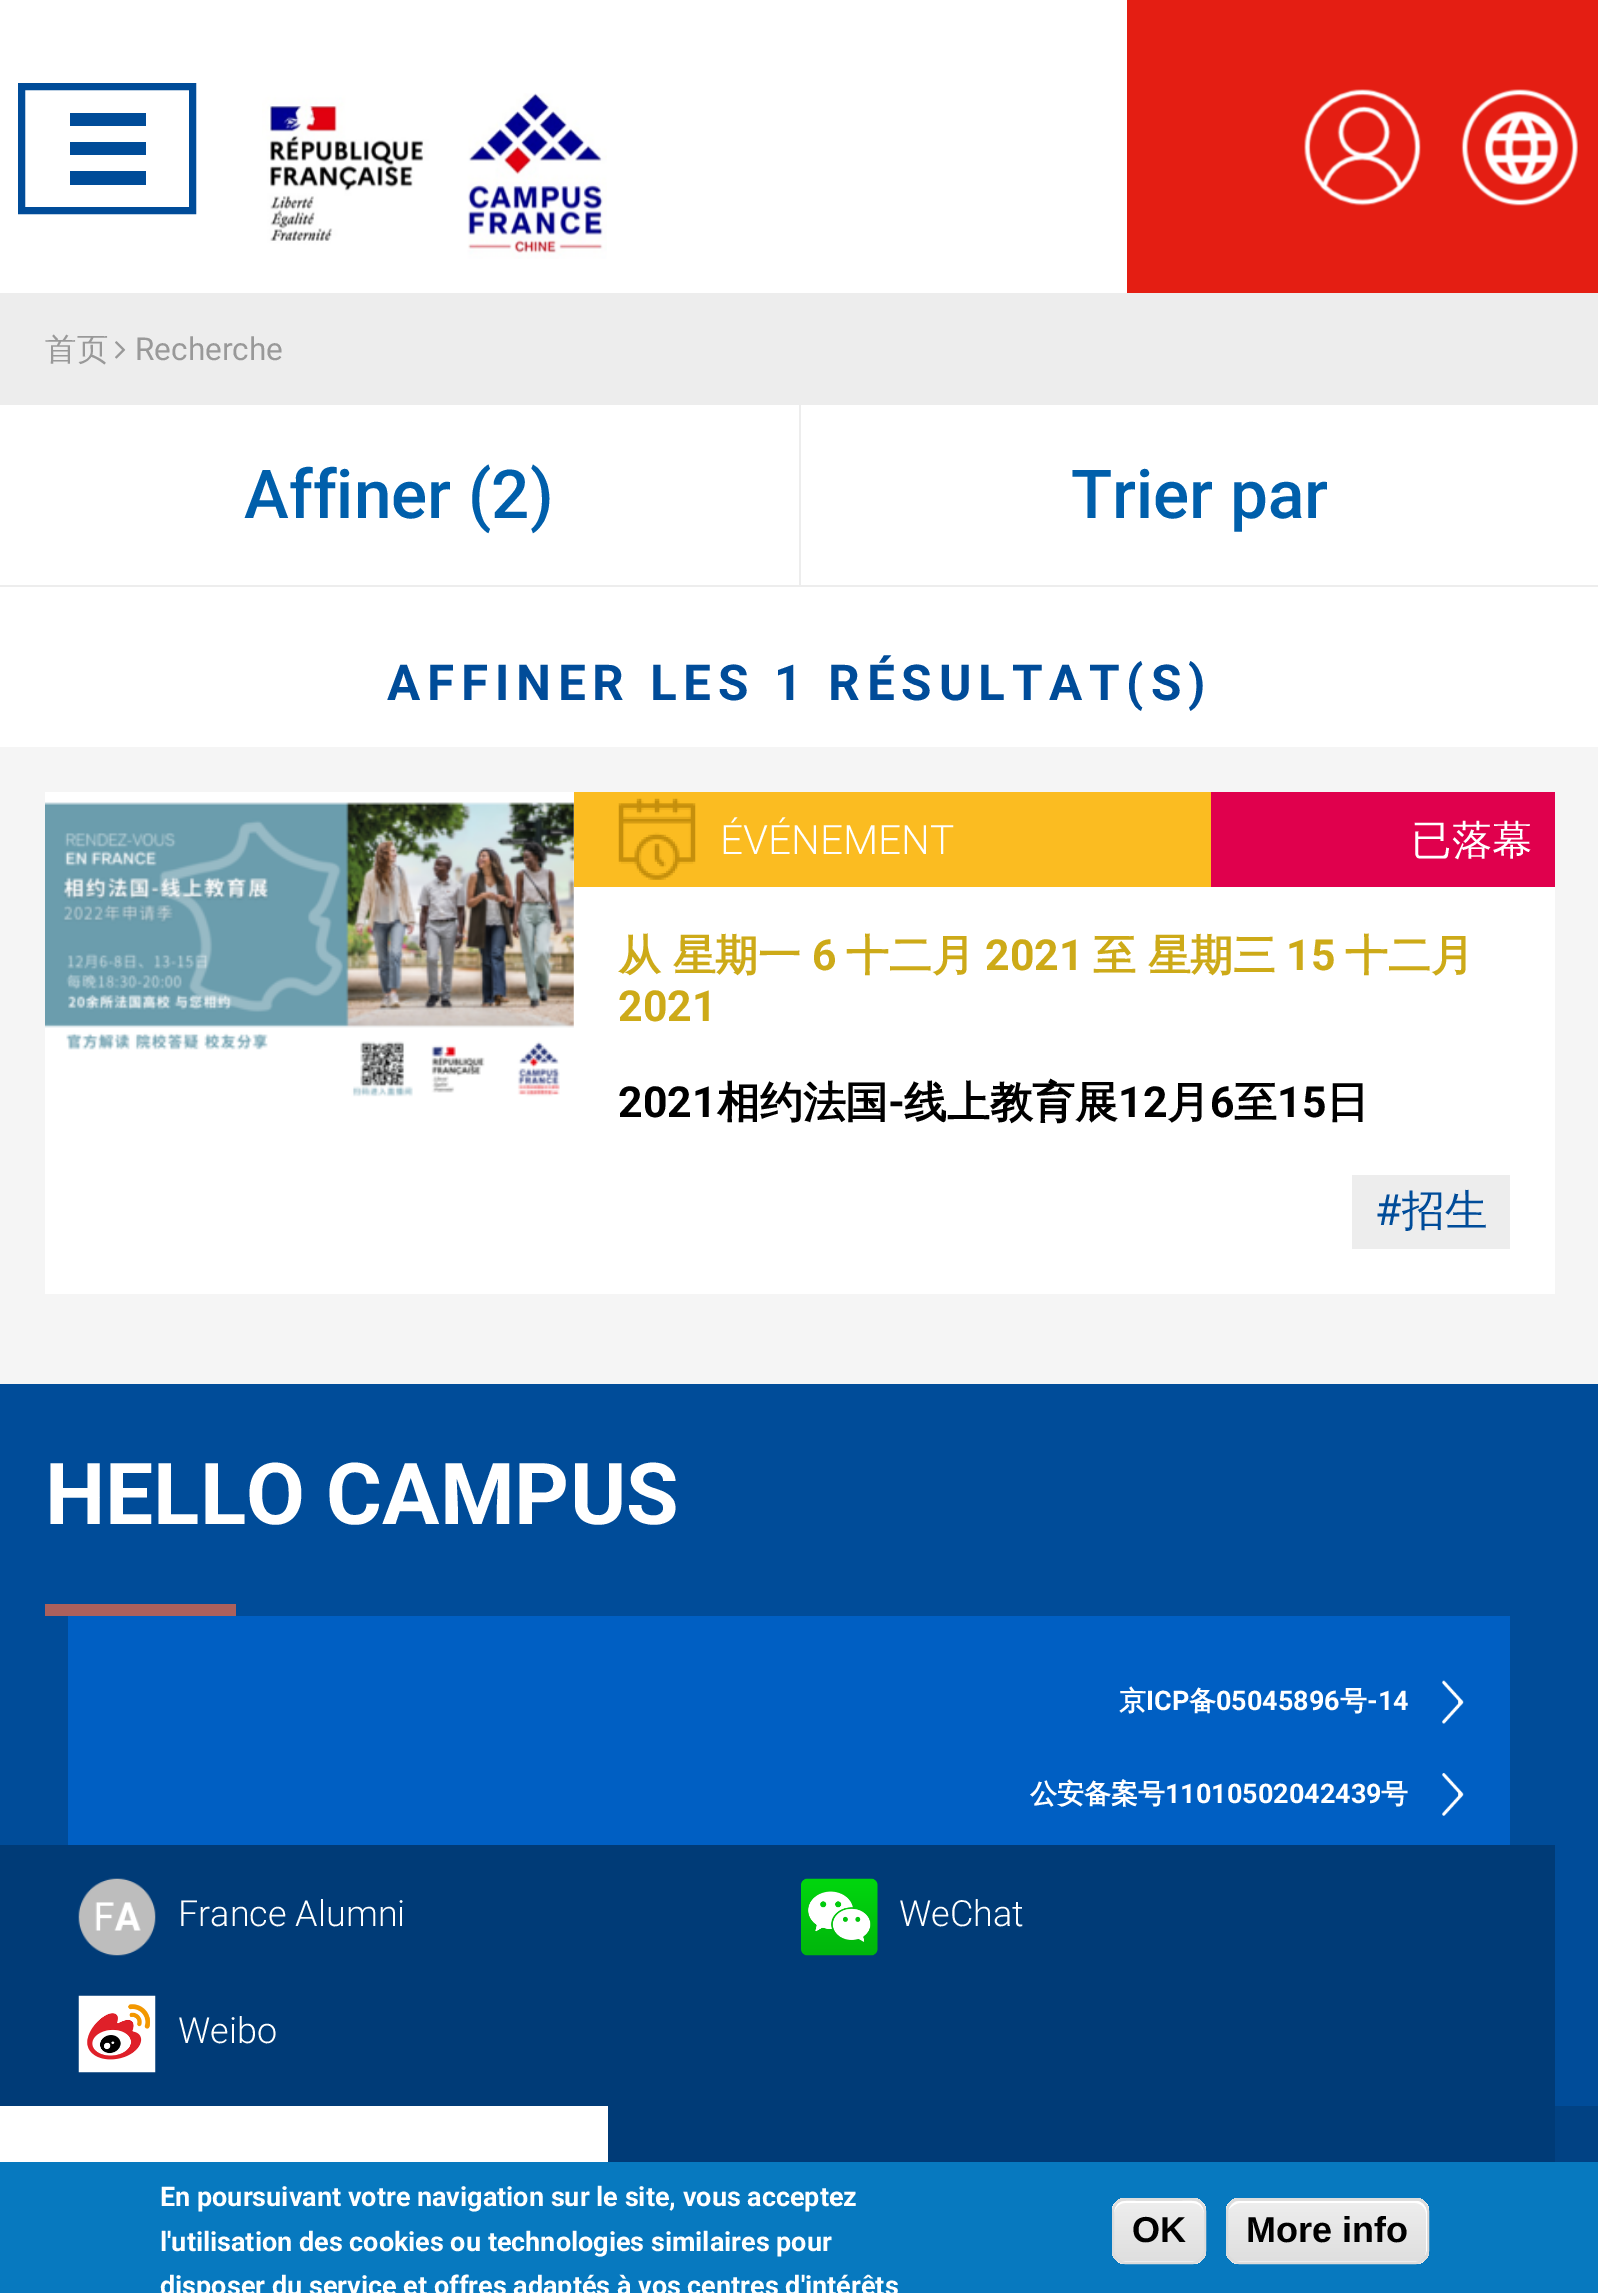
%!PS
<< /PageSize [1598 2293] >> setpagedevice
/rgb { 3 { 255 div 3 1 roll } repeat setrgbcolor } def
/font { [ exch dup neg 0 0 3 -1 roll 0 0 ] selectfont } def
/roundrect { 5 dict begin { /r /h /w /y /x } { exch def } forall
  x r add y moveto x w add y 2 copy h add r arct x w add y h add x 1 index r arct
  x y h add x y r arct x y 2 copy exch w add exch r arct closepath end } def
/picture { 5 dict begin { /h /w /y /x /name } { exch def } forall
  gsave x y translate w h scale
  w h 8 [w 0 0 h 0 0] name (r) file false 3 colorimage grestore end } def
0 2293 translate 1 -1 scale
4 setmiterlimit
245 245 245 rgb
0 0 1598 2293 rectfill
255 255 255 rgb
0 0 1127 293 rectfill
(img/1.rgb) 262 93 345 166 picture
0 76 153 rgb
7 setlinewidth
21.5 86.5 171 124 rectstroke
[
  [70 113 76 13 0 76 153]
  [70 142 76 13 0 76 153]
  [70 171 76 14 0 76 153]
  [1127 0 471 293 228 30 19]
] { aload pop rgb rectfill } forall
(img/2.rgb) 1304 89 117 117 picture
(img/3.rgb) 1461 89 117 117 picture
237 237 237 rgb
0 293 1598 112 rectfill
(img/4.rgb) 115 341 11 18 picture
[
  [0 405 1598 342 255 255 255]
  [0 585 1598 2 237 237 237]
  [799 405 2 180 237 237 237]
  [45 792 1510 502 255 255 255]
] { aload pop rgb rectfill } forall
(img/5.rgb) 45 802 529 295 picture
251 188 33 rgb
574 792 637 95 rectfill
(img/6.rgb) 618 798 78 82 picture
[
  [1211 792 344 95 224 0 77]
  [1352 1175 158 74 237 237 237]
  [0 1384 1598 722 0 76 153]
  [45 1604 191 12 171 96 92]
  [68 1616 1442 229 0 95 195]
] { aload pop rgb rectfill } forall
(img/7.rgb) 1442 1680 22 44 picture
(img/8.rgb) 1442 1773 22 43 picture
0 59 119 rgb
0 1845 1555 261 rectfill
(img/9.rgb) 78 1878 78 78 picture
(img/10.rgb) 801 1878 77 78 picture
(img/11.rgb) 78 1995 78 78 picture
[
  [1555 2106 43 56 1 66 132]
  [0 2106 608 56 255 255 255]
  [608 2106 947 56 0 59 119]
  [0 2162 1598 131 7 121 191]
] { aload pop rgb rectfill } forall
gsave
1112 2198 94 66 14 roundrect clip newpath
gsave 1112 2198 moveto 1206 2198 lineto 1206 2201 lineto 1112 2201 lineto closepath clip newpath
<< /ShadingType 2 /ColorSpace /DeviceRGB /Coords [1159 2140 1159 2201] /Extend [true true] /Function << /FunctionType 3 /Domain [0 1] /Functions [<< /FunctionType 2 /Domain [0 1] /C0 [0.929 0.929 0.929] /C1 [0.929 0.929 0.929] /N 1 >> << /FunctionType 2 /Domain [0 1] /C0 [0.929 0.929 0.929] /C1 [0.875 0.875 0.875] /N 1 >>] /Bounds [0.05] /Encode [0 1 0 1] >> >> shfill grestore
gsave 1112 2201 moveto 1206 2201 lineto 1206 2261 lineto 1112 2261 lineto closepath clip newpath
<< /ShadingType 2 /ColorSpace /DeviceRGB /Coords [1159 2201 1159 2261] /Extend [true true] /Function << /FunctionType 3 /Domain [0 1] /Functions [<< /FunctionType 2 /Domain [0 1] /C0 [0.929 0.929 0.929] /C1 [0.929 0.929 0.929] /N 1 >> << /FunctionType 2 /Domain [0 1] /C0 [0.929 0.929 0.929] /C1 [0.875 0.875 0.875] /N 1 >>] /Bounds [0.05] /Encode [0 1 0 1] >> >> shfill grestore
gsave 1112 2261 moveto 1206 2261 lineto 1206 2264 lineto 1112 2264 lineto closepath clip newpath
<< /ShadingType 2 /ColorSpace /DeviceRGB /Coords [1159 2261 1159 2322] /Extend [true true] /Function << /FunctionType 3 /Domain [0 1] /Functions [<< /FunctionType 2 /Domain [0 1] /C0 [0.929 0.929 0.929] /C1 [0.929 0.929 0.929] /N 1 >> << /FunctionType 2 /Domain [0 1] /C0 [0.929 0.929 0.929] /C1 [0.875 0.875 0.875] /N 1 >>] /Bounds [0.05] /Encode [0 1 0 1] >> >> shfill grestore
grestore
255 255 255 rgb
1125 2203 moveto 1192 2203 lineto 1199 2203 1204 2208 1204 2214 curveto 1204 2199 1193 2201 1182 2201 curveto 1136 2201 lineto 1125 2201 1114 2199 1114 2214 curveto 1114 2208 1119 2203 1125 2203 curveto closepath fill
220 220 220 rgb
2 setlinewidth
1113 2199 92 64 13 roundrect stroke
gsave
1226 2198 203 66 14 roundrect clip newpath
gsave 1226 2198 moveto 1429 2198 lineto 1429 2201 lineto 1226 2201 lineto closepath clip newpath
<< /ShadingType 2 /ColorSpace /DeviceRGB /Coords [1328 2140 1328 2201] /Extend [true true] /Function << /FunctionType 3 /Domain [0 1] /Functions [<< /FunctionType 2 /Domain [0 1] /C0 [0.929 0.929 0.929] /C1 [0.929 0.929 0.929] /N 1 >> << /FunctionType 2 /Domain [0 1] /C0 [0.929 0.929 0.929] /C1 [0.875 0.875 0.875] /N 1 >>] /Bounds [0.05] /Encode [0 1 0 1] >> >> shfill grestore
gsave 1226 2201 moveto 1429 2201 lineto 1429 2261 lineto 1226 2261 lineto closepath clip newpath
<< /ShadingType 2 /ColorSpace /DeviceRGB /Coords [1328 2201 1328 2261] /Extend [true true] /Function << /FunctionType 3 /Domain [0 1] /Functions [<< /FunctionType 2 /Domain [0 1] /C0 [0.929 0.929 0.929] /C1 [0.929 0.929 0.929] /N 1 >> << /FunctionType 2 /Domain [0 1] /C0 [0.929 0.929 0.929] /C1 [0.875 0.875 0.875] /N 1 >>] /Bounds [0.05] /Encode [0 1 0 1] >> >> shfill grestore
gsave 1226 2261 moveto 1429 2261 lineto 1429 2264 lineto 1226 2264 lineto closepath clip newpath
<< /ShadingType 2 /ColorSpace /DeviceRGB /Coords [1328 2261 1328 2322] /Extend [true true] /Function << /FunctionType 3 /Domain [0 1] /Functions [<< /FunctionType 2 /Domain [0 1] /C0 [0.929 0.929 0.929] /C1 [0.929 0.929 0.929] /N 1 >> << /FunctionType 2 /Domain [0 1] /C0 [0.929 0.929 0.929] /C1 [0.875 0.875 0.875] /N 1 >>] /Bounds [0.05] /Encode [0 1 0 1] >> >> shfill grestore
grestore
255 255 255 rgb
1240 2203 moveto 1415 2203 lineto 1421 2203 1426 2208 1426 2214 curveto 1426 2252 lineto 1425 2256 lineto 1426 2254 1427 2252 1427 2250 curveto 1427 2212 lineto 1427 2206 1422 2201 1416 2201 curveto 1240 2201 lineto 1235 2201 1231 2204 1229 2209 curveto 1232 2206 1236 2203 1240 2203 curveto closepath fill
220 220 220 rgb
1227 2199 201 64 13 roundrect stroke
/WenQuanYiZenHei-Medium 31.5 font
153 153 153 rgb
45 360 moveto (首页) show
/Roboto-Regular 31.5 font
135 360 moveto (Recherche) show
/Roboto-Medium 67.5 font
0 95 171 rgb
244 518 moveto (Affiner \(2\)) show
1071 518 moveto (Trier par) show
/Roboto-Bold 49.5 font
0 76 153 rgb
387 700 moveto 6.75 0 (AFFINER LES 1 RÉSULTAT\(S\)) ashow
/Roboto-Light 40.5 font
255 255 255 rgb
720 854 moveto (ÉVÉNEMENT) show
/WenQuanYiZenHei-Medium 40.5 font
1411 854 moveto (已落幕) show
/WenQuanYiZenHei-Bold 42.75 font
205 170 24 rgb
618 970 moveto -1 0 32 (从 星期一) widthshow
/Roboto-Bold 42.75 font
812 970 moveto (6) show
/WenQuanYiZenHei-Bold 42.75 font
846 970 moveto (十二月) show
/Roboto-Bold 42.75 font
985 970 moveto (2021) show
/WenQuanYiZenHei-Bold 42.75 font
1093 970 moveto -1 0 32 (至 星期三) widthshow
/Roboto-Bold 42.75 font
1286 970 moveto (15) show
/WenQuanYiZenHei-Bold 42.75 font
1345 970 moveto (十二月) show
/Roboto-Bold 42.75 font
618 1021 moveto (2021) show
0 0 0 rgb
618 1117 moveto (2021) show
/WenQuanYiZenHei-Bold 42.75 font
717 1117 moveto (相约法国) show
/Roboto-Bold 42.75 font
888 1117 moveto (-) show
/WenQuanYiZenHei-Bold 42.75 font
904 1117 moveto (线上教育展) show
/Roboto-Bold 42.75 font
1118 1117 moveto (12) show
/WenQuanYiZenHei-Bold 42.75 font
1167 1117 moveto (月) show
/Roboto-Bold 42.75 font
1210 1117 moveto (6) show
/WenQuanYiZenHei-Bold 42.75 font
1234 1117 moveto (至) show
/Roboto-Bold 42.75 font
1277 1117 moveto (15) show
/WenQuanYiZenHei-Bold 42.75 font
1326 1117 moveto (日) show
/Roboto-Regular 42.75 font
0 76 153 rgb
1375 1225 moveto (#) show
/WenQuanYiZenHei-Medium 42.75 font
1402 1225 moveto (招生) show
/Roboto-Bold 85.5 font
255 255 255 rgb
45 1524 moveto (HELLO CAMPUS) show
/WenQuanYiZenHei-Bold 27 font
1119 1710 moveto (京) show
/Roboto-Bold 27 font
1146 1710 moveto (ICP) show
/WenQuanYiZenHei-Bold 27 font
1189 1710 moveto (备) show
/Roboto-Bold 27 font
1216 1710 moveto (05045896) show
/WenQuanYiZenHei-Bold 27 font
1340 1710 moveto (号) show
/Roboto-Bold 27 font
1367 1710 moveto (-14) show
/WenQuanYiZenHei-Bold 27 font
1030 1803 moveto (公安备案号) show
/Roboto-Bold 27 font
1165 1803 moveto (11010502042439) show
/WenQuanYiZenHei-Bold 27 font
1381 1803 moveto (号) show
/Roboto-Light 36 font
[
  [(France Alumni) 178 1926]
  [(WeChat) 899 1926]
  [(Weibo) 178 2043]
] { aload pop moveto show } forall
/Roboto-Bold 27 font
[
  [(En poursuivant votre navigation sur le site, vous acceptez) 160 2206]
  [(l'utilisation des cookies ou technologies similaires pour) 160 2251]
  [(disposer du service et offres adaptés à vos centres d'intérêts) 160 2295]
] { aload pop moveto show } forall
/LiberationSans-Bold 36 font
0 0 0 rgb
1132 2242 moveto (OK) show
1246 2242 moveto (More info) show
showpage
